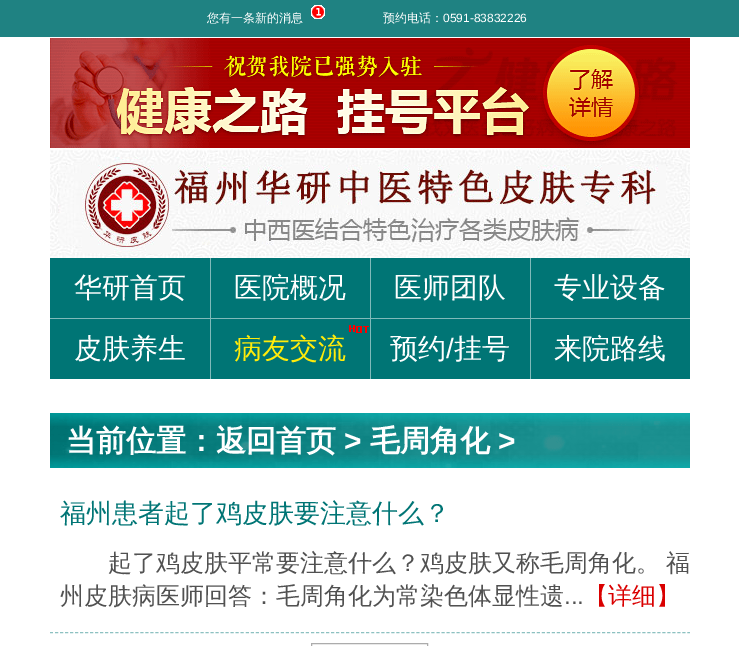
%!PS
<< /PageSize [739 646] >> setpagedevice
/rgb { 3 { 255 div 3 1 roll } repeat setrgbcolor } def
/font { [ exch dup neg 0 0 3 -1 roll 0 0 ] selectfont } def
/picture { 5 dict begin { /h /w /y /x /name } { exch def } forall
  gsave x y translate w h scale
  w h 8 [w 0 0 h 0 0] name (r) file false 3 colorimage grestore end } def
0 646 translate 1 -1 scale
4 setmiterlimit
255 255 255 rgb
0 0 739 646 rectfill
31 130 130 rgb
0 0 739 37 rectfill
(img/1.rgb) 311 5 14 14 picture
(img/2.rgb) 50 38 640 110 picture
(img/3.rgb) 50 149 640 109 picture
[
  [50 258 640 121 0 117 117]
  [50 318 640 1 128 186 186]
  [210 258 1 121 128 186 186]
  [370 258 1 121 128 186 186]
  [530 258 1 121 128 186 186]
] { aload pop rgb rectfill } forall
(img/4.rgb) 349 325 20 8 picture
(img/5.rgb) 50 413 640 55 picture
141 193 193 rgb
[3 2.02] 0 setdash
50 632.5 moveto 690 632.5 lineto stroke
172 172 172 rgb
[] 0 setdash
311.5 643.5 116 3 rectstroke
/WenQuanYiZenHei-Medium 12 font
255 255 255 rgb
207 22 moveto (您有一条新的消息) show
383 22 moveto (预约电话：) show
/LiberationSans-Regular 12 font
443 22 moveto (0591-83832226) show
/WenQuanYiZenHei-Medium 28 font
[
  [(华研首页) 74 297]
  [(医院概况) 234 297]
  [(医师团队) 394 297]
  [(专业设备) 554 297]
  [(皮肤养生) 74 358]
] { aload pop moveto show } forall
255 235 10 rgb
234 358 moveto (病友交流) show
255 255 255 rgb
390 358 moveto (预约) show
/LiberationSans-Regular 28 font
446 358 moveto (/) show
/WenQuanYiZenHei-Medium 28 font
454 358 moveto (挂号) show
554 358 moveto (来院路线) show
/WenQuanYiZenHei-Bold 30 font
66 451 moveto (当前位置：返回首页) show
/LiberationSans-Bold 30 font
344 451 moveto (>) show
/WenQuanYiZenHei-Bold 30 font
370 451 moveto (毛周角化) show
/LiberationSans-Bold 30 font
498 451 moveto (>) show
/WenQuanYiZenHei-Medium 26 font
0 117 117 rgb
60 522 moveto (福州患者起了鸡皮肤要注意什么？) show
/WenQuanYiZenHei-Medium 24 font
81 81 81 rgb
108 571 moveto -1 0 32 (起了鸡皮肤平常要注意什么？鸡皮肤又称毛周角化。 福) widthshow
60 604 moveto (州皮肤病医师回答：毛周角化为常染色体显性遗) show
/LiberationSans-Regular 24 font
564 604 moveto (...) show
/WenQuanYiZenHei-Medium 24 font
218 0 0 rgb
584 604 moveto (【详细】) show
showpage
